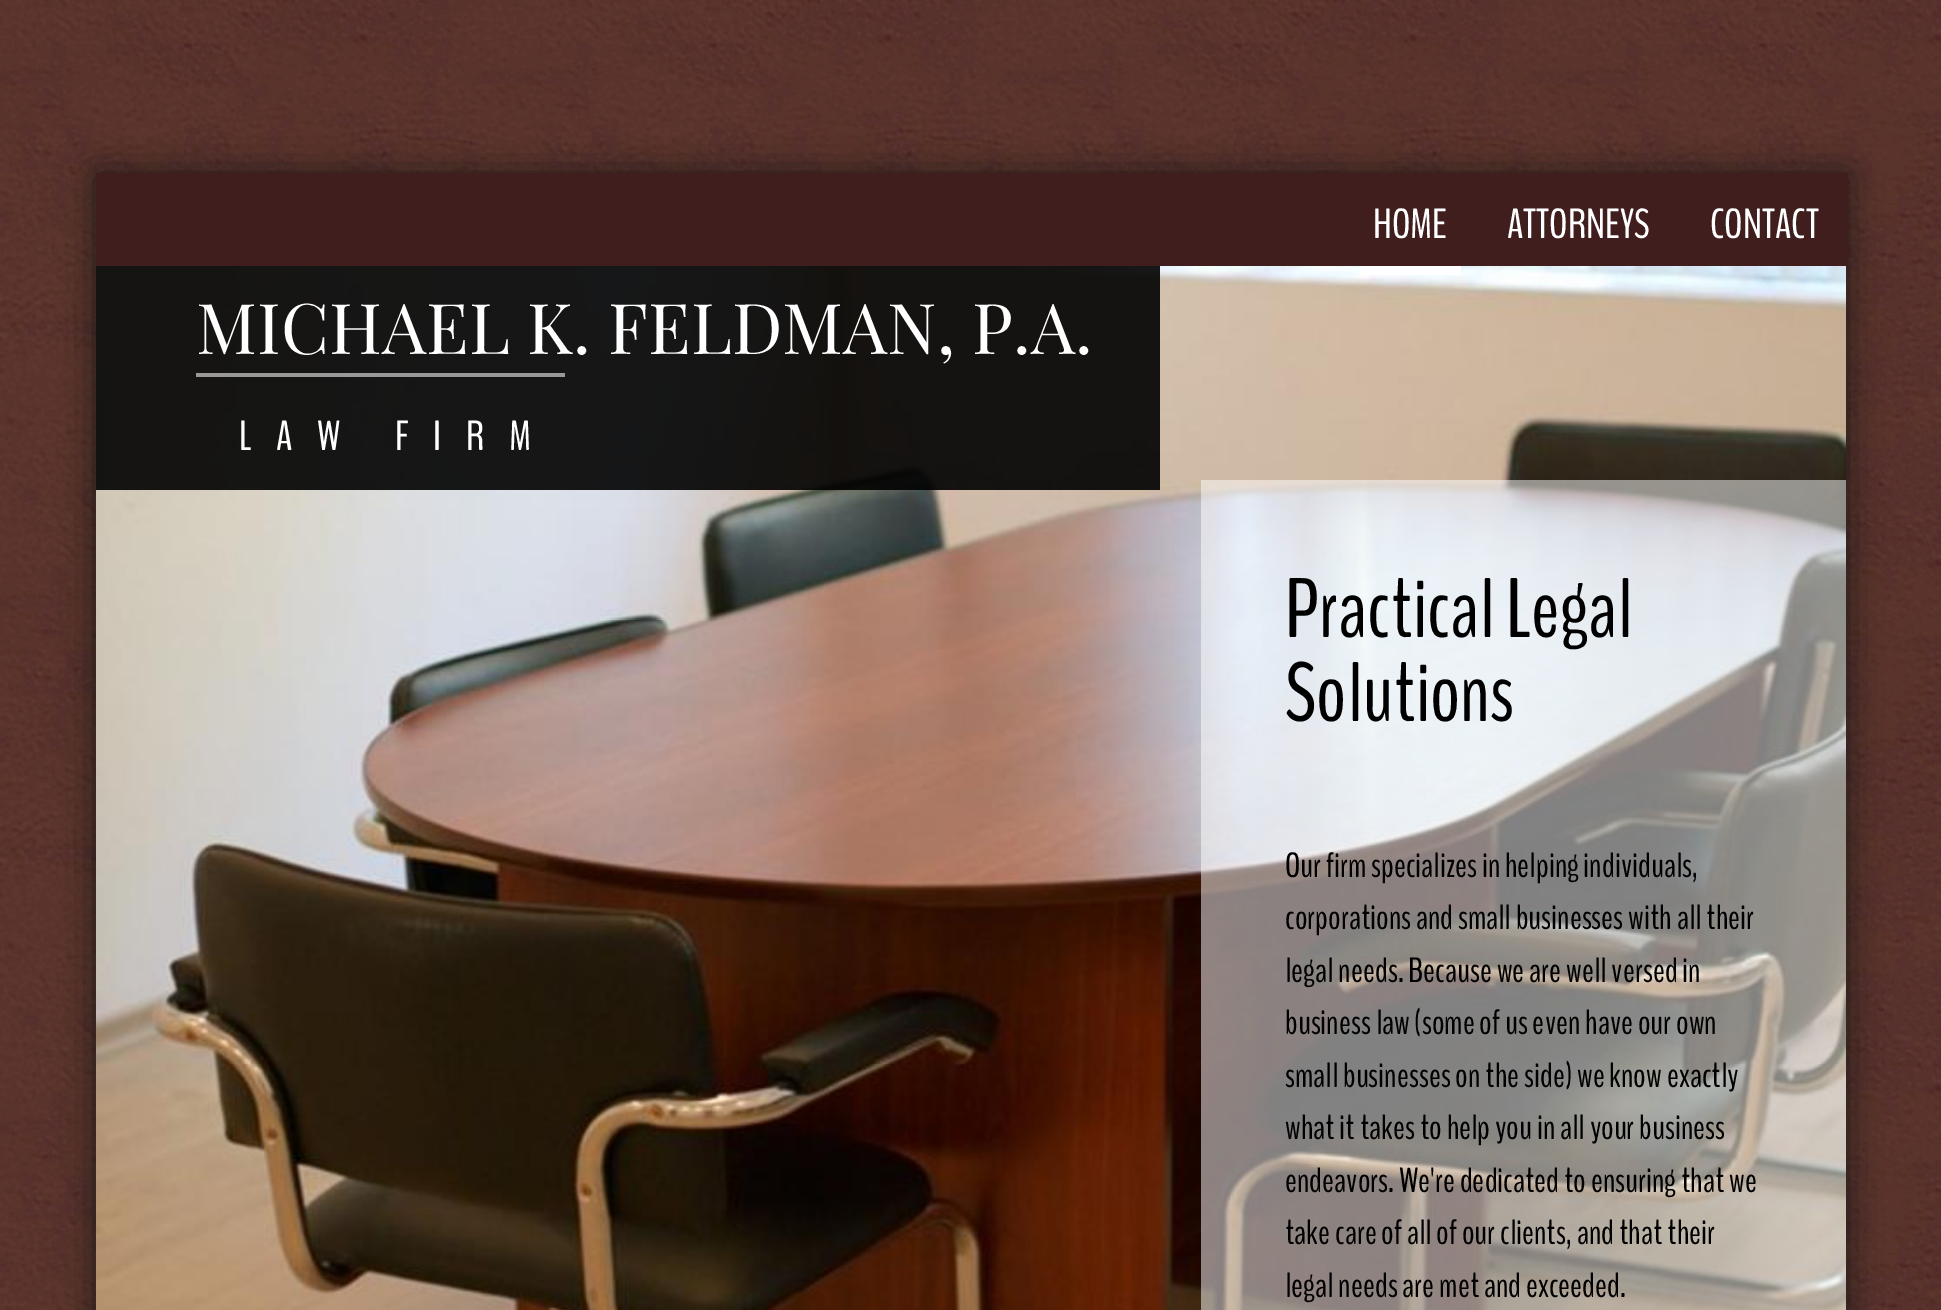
%!PS
<< /PageSize [1941 1310] /PageUsesTransparency true >> setpagedevice
/rgb { 3 { 255 div 3 1 roll } repeat setrgbcolor } def
/font { [ exch dup neg 0 0 3 -1 roll 0 0 ] selectfont } def
/alpha { dup .setfillconstantalpha .setstrokeconstantalpha } def
/roundrect { 5 dict begin { /r /h /w /y /x } { exch def } forall
  x r add y moveto x w add y 2 copy h add r arct x w add y h add x 1 index r arct
  x y h add x y r arct x y 2 copy exch w add exch r arct closepath end } def
/shadow { 12 dict begin { /a /b /q /h /w /y /x } { exch def } forall gsave /was 0 def
  9 -2 -9 { dup b mul 4 div /e exch def 1 sub .425 mul 2.718 exch exp 1 add a .99 .min exch div /now exch def
    1 1 now sub 1 was sub div sub alpha /was now def
    w h .min e 2 mul add 0 gt { x e sub y e sub w e 2 mul add h e 2 mul add
      q e add b .6 mul add w h .min 2 div e add .min 0 .max roundrect fill } if } for grestore end } def
/picture { 5 dict begin { /h /w /y /x /name } { exch def } forall
  gsave x y translate w h scale
  w h 8 [w 0 0 h 0 0] name (r) file false 3 colorimage grestore end } def
0 .pushpdf14devicefilter
0 1310 translate 1 -1 scale
4 setmiterlimit
255 255 255 rgb
0 0 1941 1310 rectfill
(img/1.rgb) 0 0 1941 1310 picture
20 20 20 rgb
96 175 1750 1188 0 17.5 0.9 shadow
64 30 29 rgb
96 173 1752 93 rectfill
(img/2.rgb) 96 266 1750 1044 picture
[
  [1360 266 101 9 255 255 255]
] { aload pop rgb rectfill } forall
0.9 alpha
[
  [96 266 1064 224 0 0 0]
] { aload pop rgb rectfill } forall
1 alpha
[
  [196 373 369 4 153 153 153]
] { aload pop rgb rectfill } forall
0.5 alpha
[
  [1201 480 645 830 255 255 255]
] { aload pop rgb rectfill } forall
/BenchNine-Regular 42 font
1 alpha
[
  [(HOME) 1373 238]
  [(ATTORNEYS) 1507 238]
  [(CONTACT) 1710 238]
] { aload pop moveto show } forall
/PlayfairDisplaySC-Regular 70 font
196 354 moveto (MICHAEL K. FELDMAN, P.A.) show
/BenchNine-Regular 42 font
239 450 moveto 24.5 0 (LAW FIRM) ashow
/BenchNine-Regular 84 font
0 0 0 rgb
1285 637 moveto (Practical Legal) show
1285 721 moveto (Solutions) show
/BenchNine-Regular 35 font
[
  [(Our firm specializes in helping individuals,) 1285 877]
  [(corporations and small businesses with all their) 1285 929]
  [(legal needs. Because we are well versed in) 1285 982]
  [(business law \(some of us even have our own) 1285 1034]
  [(small businesses on the side\) we know exactly) 1285 1087]
  [(what it takes to help you in all your business) 1285 1139]
  [(endeavors. We're dedicated to ensuring that we) 1285 1192]
  [(take care of all of our clients, and that their) 1285 1244]
  [(legal needs are met and exceeded.) 1285 1297]
] { aload pop moveto show } forall
.poppdf14devicefilter showpage
